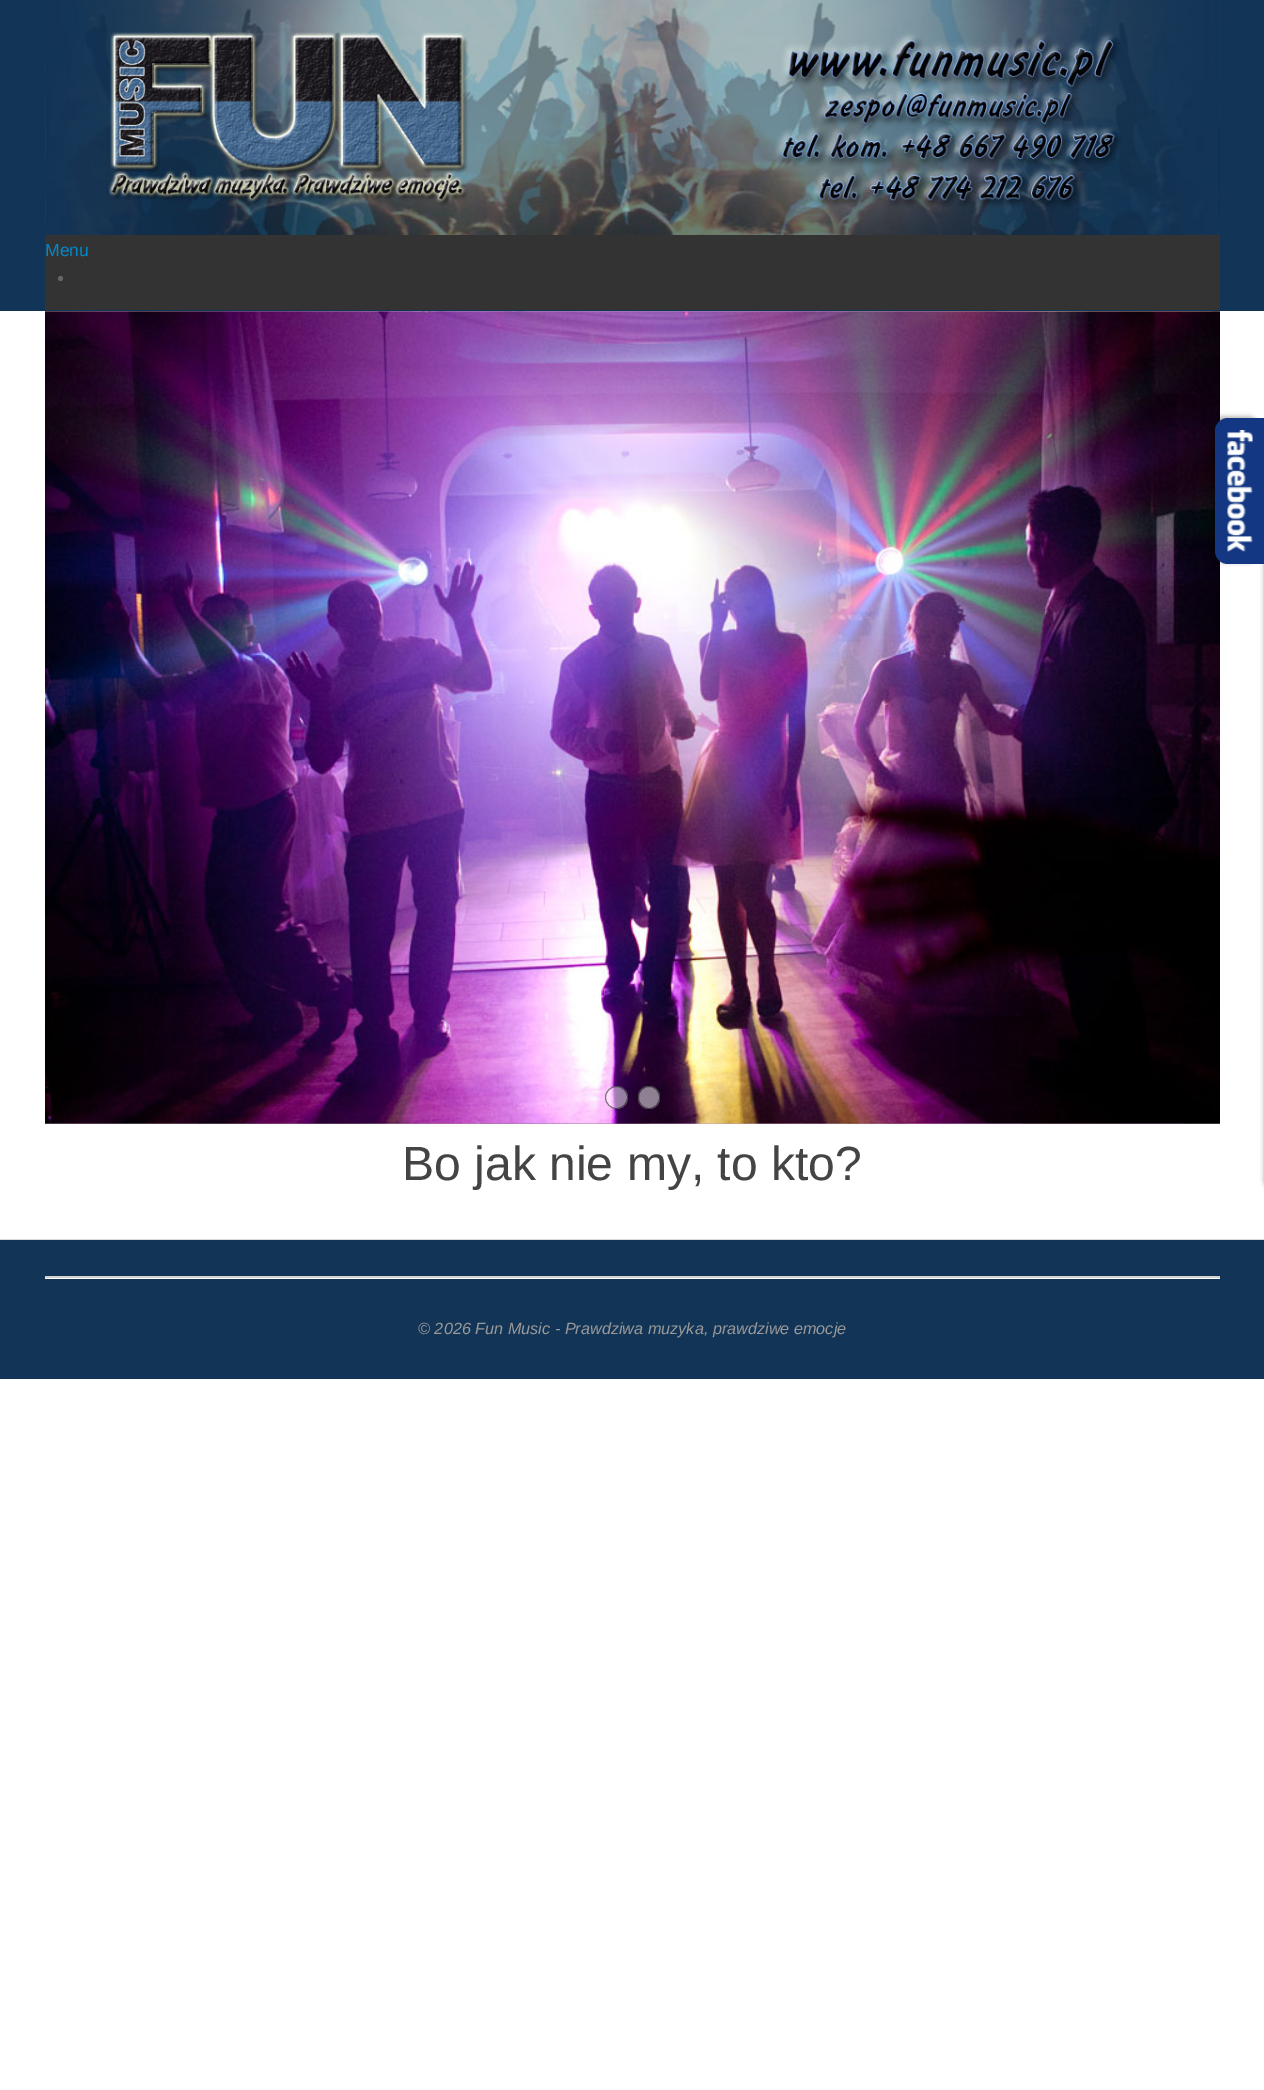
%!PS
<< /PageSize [1264 2090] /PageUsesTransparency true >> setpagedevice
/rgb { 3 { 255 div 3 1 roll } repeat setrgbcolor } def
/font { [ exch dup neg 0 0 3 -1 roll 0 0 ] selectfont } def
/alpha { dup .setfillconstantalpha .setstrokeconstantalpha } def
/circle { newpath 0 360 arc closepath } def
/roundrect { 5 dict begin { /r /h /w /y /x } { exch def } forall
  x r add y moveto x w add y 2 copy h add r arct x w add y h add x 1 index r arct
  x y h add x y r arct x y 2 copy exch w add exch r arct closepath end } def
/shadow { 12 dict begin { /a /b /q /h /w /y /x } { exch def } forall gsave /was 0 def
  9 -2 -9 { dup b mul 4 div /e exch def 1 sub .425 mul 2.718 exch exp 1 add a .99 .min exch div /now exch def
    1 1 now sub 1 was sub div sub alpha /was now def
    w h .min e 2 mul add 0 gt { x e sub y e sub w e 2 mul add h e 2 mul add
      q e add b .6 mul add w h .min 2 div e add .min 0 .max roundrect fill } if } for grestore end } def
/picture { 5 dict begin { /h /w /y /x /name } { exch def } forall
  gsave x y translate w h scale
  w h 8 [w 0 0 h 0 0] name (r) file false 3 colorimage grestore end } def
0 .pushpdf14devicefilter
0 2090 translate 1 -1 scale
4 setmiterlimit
255 255 255 rgb
0 0 1264 2090 rectfill
18 52 86 rgb
0 0 1264 311 rectfill
(img/1.rgb) 45 0 1175 235 picture
51 51 51 rgb
45 235 1175 75 rectfill
102 102 102 rgb
60.5 278.5 2.5 circle fill
(img/2.rgb) 45 311 1175 813 picture
(img/3.rgb) 45 311 1175 813 picture
0.5 alpha
255 255 255 rgb
616.5 1097.5 11.5 circle fill
0 0 0 rgb
616.5 1097.5 11 circle stroke
255 255 255 rgb
638 1086 22 23 11 roundrect fill
0 0 0 rgb
638.5 1086.5 21 22 10.5 roundrect stroke
1 alpha
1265 418 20 771 13 2.5 0.5 shadow
1211 416 50 147 13 2 0.25 shadow
19 55 131 rgb
1228 418 moveto 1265 418 lineto 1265 564 lineto 1228 564 lineto 1221 564 1215 558 1215 551 curveto 1215 431 lineto 1215 424 1221 418 1228 418 curveto closepath fill
(img/4.rgb) 1227 430 26 122 picture
[
  [0 1240 1264 139 18 52 86]
  [0 1239 1264 1 217 217 217]
  [45 1276 1175 2 209 209 209]
  [45 1278 1175 1 255 255 255]
] { aload pop rgb rectfill } forall
/LiberationSans-Regular 17.5 font
0 136 204 rgb
45 256 moveto (Menu) show
/LiberationSans-Regular 48.1 font
68 68 68 rgb
402 1180 moveto (Bo jak nie my, to kto?) show
/LiberationSans-Italic 16.25 font
153 153 153 rgb
418 1334 moveto (© 2026 Fun Music - Prawdziwa muzyka, prawdziwe emocje) show
.poppdf14devicefilter showpage
